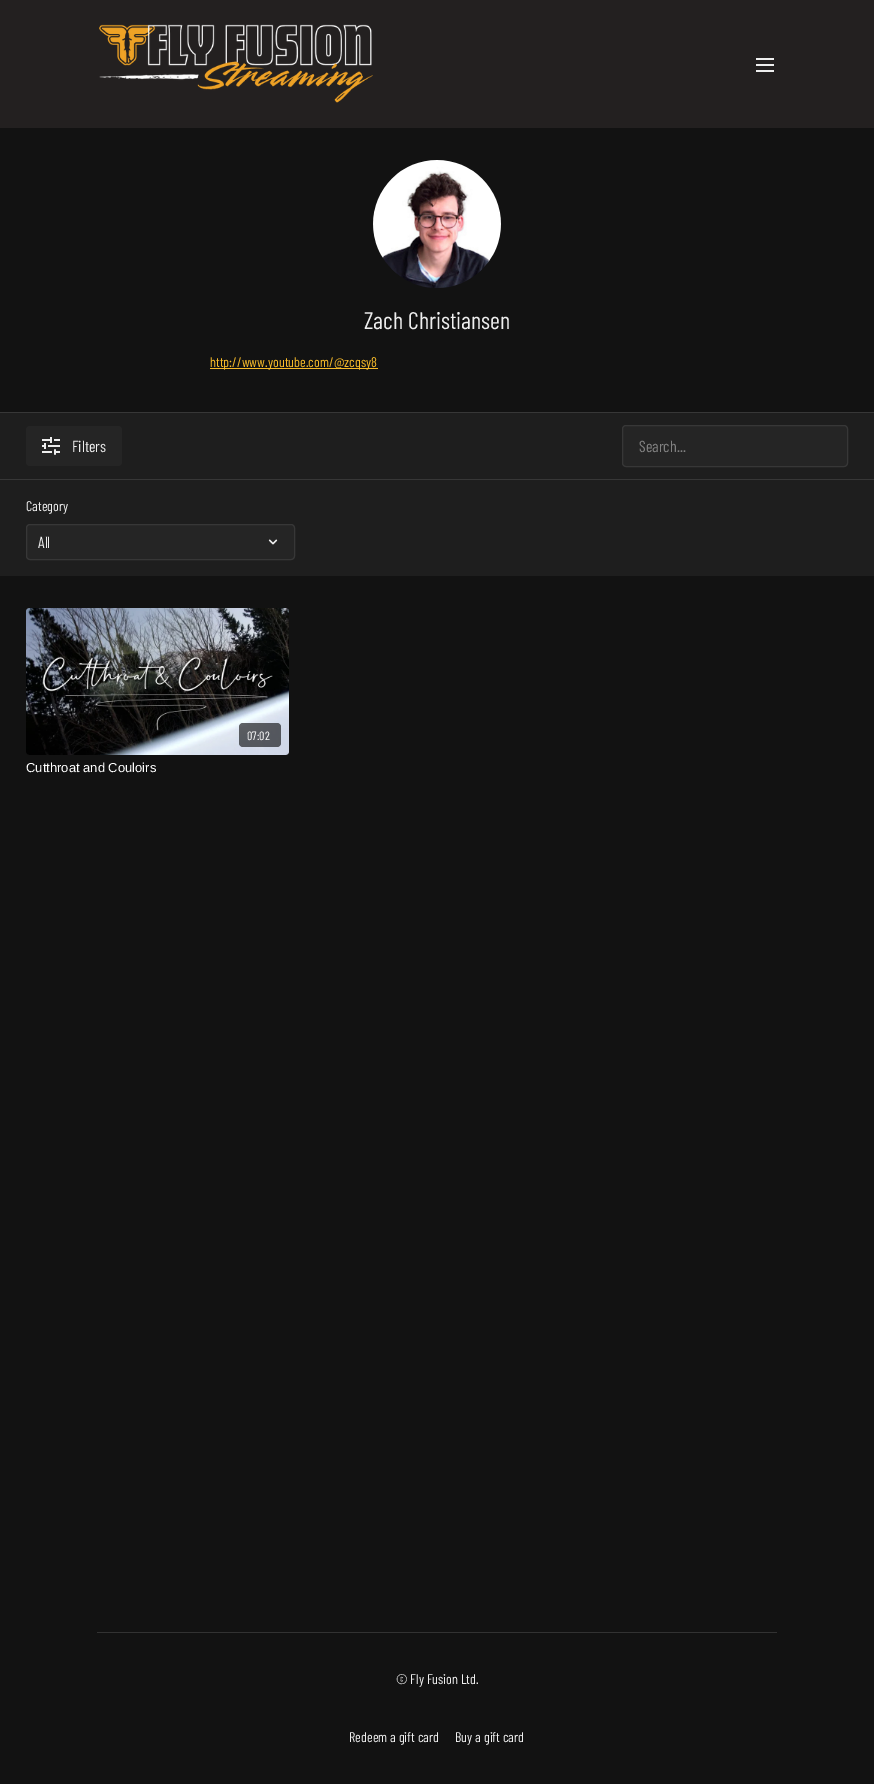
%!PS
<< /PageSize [874 1784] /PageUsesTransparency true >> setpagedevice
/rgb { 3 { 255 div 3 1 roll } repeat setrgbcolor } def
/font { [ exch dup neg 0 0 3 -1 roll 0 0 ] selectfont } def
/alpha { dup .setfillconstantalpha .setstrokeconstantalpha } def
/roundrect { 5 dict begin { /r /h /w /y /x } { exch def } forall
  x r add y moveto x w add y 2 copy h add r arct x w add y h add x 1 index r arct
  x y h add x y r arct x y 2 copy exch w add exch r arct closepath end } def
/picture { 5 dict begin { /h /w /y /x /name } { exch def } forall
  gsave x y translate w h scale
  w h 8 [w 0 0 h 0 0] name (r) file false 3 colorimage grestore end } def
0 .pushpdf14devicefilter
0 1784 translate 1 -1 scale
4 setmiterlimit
18 18 18 rgb
0 0 874 1784 rectfill
35 32 32 rgb
0 0 874 128 rectfill
(img/1.rgb) 99 24 274 79 picture
(img/2.rgb) 756 58 18 14 picture
55 55 55 rgb
0 412 874 1 rectfill
(img/3.rgb) 373 160 128 128 picture
[
  [210 368 168 1 248 187 41]
  [0 413 874 163 30 30 30]
  [0 479 874 1 55 55 55]
] { aload pop rgb rectfill } forall
37 37 37 rgb
26 426 96 40 4 roundrect fill
(img/4.rgb) 42 437 18 18 picture
622.5 425.5 225 41 3.5 roundrect gsave fill grestore
55 55 55 rgb
stroke
37 37 37 rgb
26 524 269 36 4 roundrect fill
(img/5.rgb) 268 539 10 6 picture
55 55 55 rgb
26.5 524.5 268 35 3.5 roundrect stroke
(img/6.rgb) 26 608 263 147 picture
0.6 alpha
0 0 0 rgb
239 723 42 24 4 roundrect fill
1 alpha
50 50 50 rgb
97 1632 680 1 rectfill
/BarlowCondensed-Regular 24 font
238 238 238 rgb
364 329 moveto (Zach Christiansen) show
/BarlowCondensed-Regular 14 font
248 187 41 rgb
210 367 moveto (http://www.youtube.com/@zcqsy8) show
/BarlowCondensed-Regular 16 font
238 238 238 rgb
72 452 moveto (Filters) show
129 129 129 rgb
639 452 moveto (Search...) show
/BarlowCondensed-Regular 14 font
238 238 238 rgb
26 511 moveto (Category) show
/BarlowCondensed-Regular 16 font
38 548 moveto (All) show
/BarlowCondensed-Regular 12 font
255 255 255 rgb
247 740 moveto (07:02) show
/LiberationSans-Regular 13 font
26 772 moveto (Cutthroat and Couloirs) show
/BarlowCondensed-Regular 14 font
238 238 238 rgb
[
  [(© Fly Fusion Ltd.) 396 1684]
  [(Redeem a gift card) 349 1742]
  [(Buy a gift card) 455 1742]
] { aload pop moveto show } forall
.poppdf14devicefilter showpage
